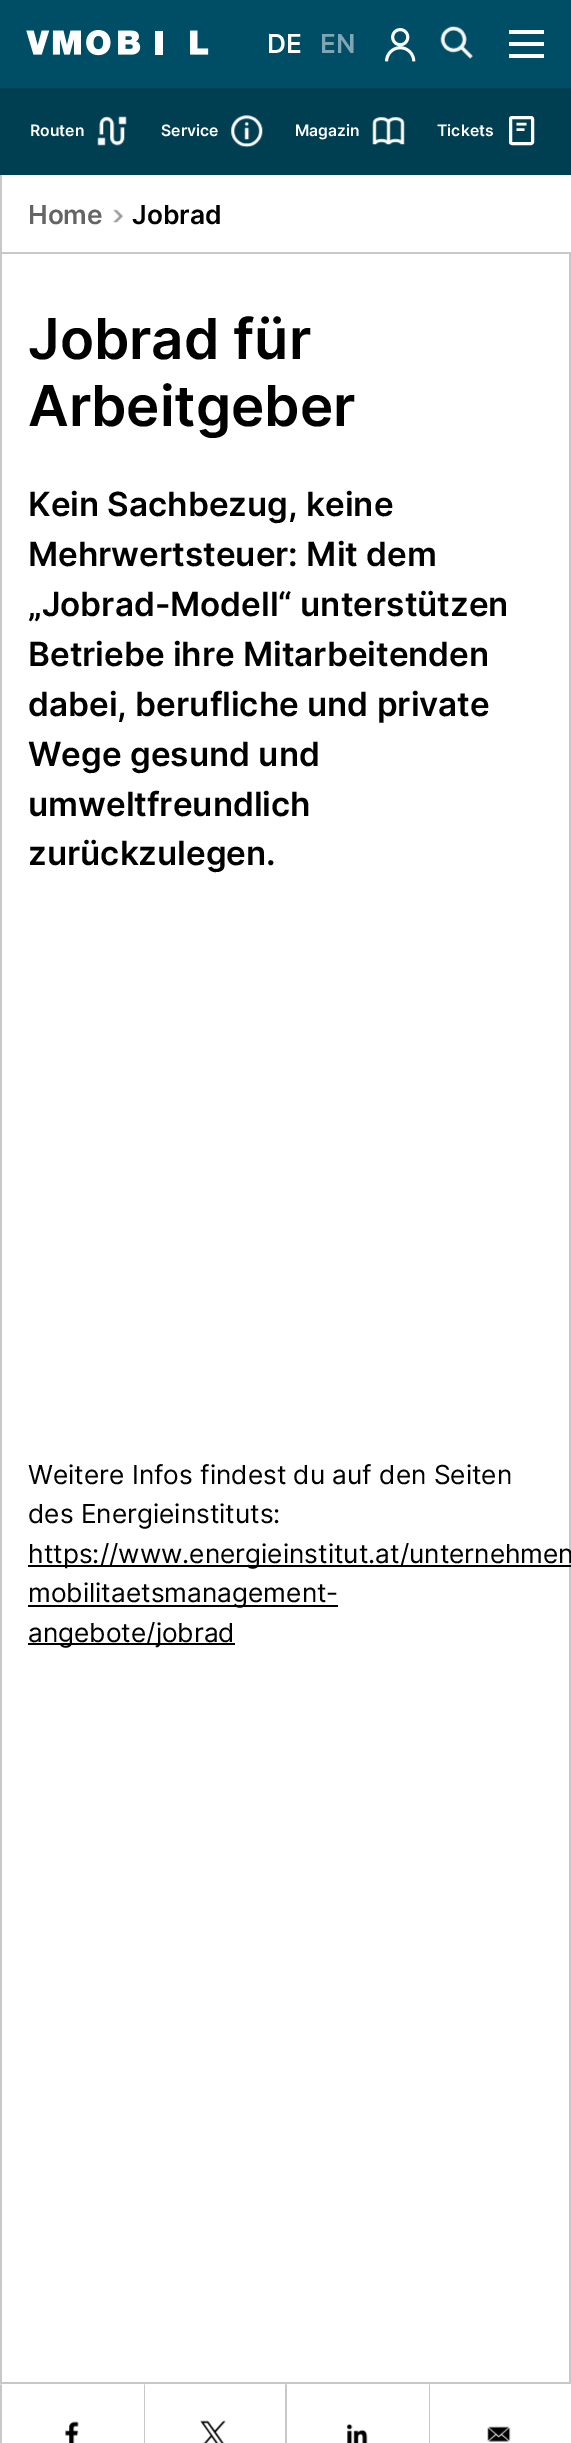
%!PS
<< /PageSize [571 2443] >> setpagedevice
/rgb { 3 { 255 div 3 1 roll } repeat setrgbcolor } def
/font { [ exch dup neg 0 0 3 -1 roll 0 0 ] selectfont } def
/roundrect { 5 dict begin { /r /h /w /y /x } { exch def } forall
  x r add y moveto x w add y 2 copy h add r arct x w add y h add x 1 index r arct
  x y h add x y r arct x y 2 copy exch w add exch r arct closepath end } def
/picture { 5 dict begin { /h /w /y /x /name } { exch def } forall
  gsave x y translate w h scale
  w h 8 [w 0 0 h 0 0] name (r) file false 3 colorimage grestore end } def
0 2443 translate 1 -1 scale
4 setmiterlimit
255 255 255 rgb
0 0 571 2443 rectfill
0 77 102 rgb
0 0 571 88 rectfill
(img/1.rgb) 26 30 183 26 picture
[
  [509 42 35 4 255 255 255]
  [509 30 35 4 255 255 255]
  [509 54 35 4 255 255 255]
] { aload pop rgb rectfill } forall
(img/2.rgb) 385 28 31 34 picture
(img/3.rgb) 440 26 33 33 picture
0 62 82 rgb
0 88 571 87 rectfill
(img/4.rgb) 97 116 30 30 picture
(img/5.rgb) 231 115 32 33 picture
(img/6.rgb) 372 117 33 28 picture
255 255 255 rgb
3 setlinewidth
510.5 117.5 22 26 1.5 roundrect stroke
2.6 setlinewidth
2 setlinecap
518 129.5 moveto 523 129.5 lineto 518 124 moveto 525 124 lineto stroke
200 200 200 rgb
0 252 571 2 rectfill
0 175 2 79 rectfill
(img/7.rgb) 113 209 11 14 picture
[
  [0 254 2 2128 200 200 200]
  [569 254 2 2128 200 200 200]
  [28 1565 543 2 0 0 0]
  [28 1605 310 2 0 0 0]
  [28 1643 207 2 0 0 0]
  [0 2382 571 2 200 200 200]
] { aload pop rgb rectfill } forall
0 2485 moveto 0 2384 lineto 2 2385 lineto 2 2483 lineto closepath fill
(img/8.rgb) 65 2421 14 22 picture
144 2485 moveto 144 2384 lineto 145 2385 lineto 145 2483 lineto closepath fill
(img/9.rgb) 200 2420 26 23 picture
285 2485 moveto 285 2384 lineto 287 2385 lineto 287 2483 lineto closepath fill
(img/10.rgb) 346 2423 22 20 picture
429 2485 moveto 429 2384 lineto 430 2385 lineto 430 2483 lineto closepath fill
(img/11.rgb) 487 2426 24 16 picture
/Inter-SemiBold 26.25 font
255 255 255 rgb
267 53 moveto (DE) show
128 166 179 rgb
320 53 moveto (EN) show
/Inter-SemiBold 15.75 font
255 255 255 rgb
[
  [(Routen) 30 136]
  [(Service) 161 136]
  [(Magazin) 295 136]
  [(Tickets) 437 136]
] { aload pop moveto show } forall
/Inter-SemiBold 26.25 font
100 100 100 rgb
28 224 moveto (Home) show
0 0 0 rgb
132 224 moveto (Jobrad) show
/Inter-SemiBold 56.25 font
28 359 moveto (Jobrad für) show
28 426 moveto (Arbeitgeber) show
/Inter-SemiBold 33.25 font
[
  [(Kein Sachbezug, keine) 28 516]
  [(Mehrwertsteuer: Mit dem) 28 566]
  [(„Jobrad-Modell“ unterstützen) 28 616]
  [(Betriebe ihre Mitarbeitenden) 28 666]
  [(dabei, berufliche und private) 28 716]
  [(Wege gesund und) 28 766]
  [(umweltfreundlich) 28 816]
  [(zurückzulegen.) 28 865]
] { aload pop moveto show } forall
/Inter-Regular 26.25 font
[
  [(Weitere Infos findest du auf den Seiten) 28 1484]
  [(des Energieinstituts:) 28 1523]
  [(https://www.energieinstitut.at/unternehmen) 28 1563]
  [(mobilitaetsmanagement-) 28 1602]
  [(angebote/jobrad) 28 1642]
] { aload pop moveto show } forall
showpage
